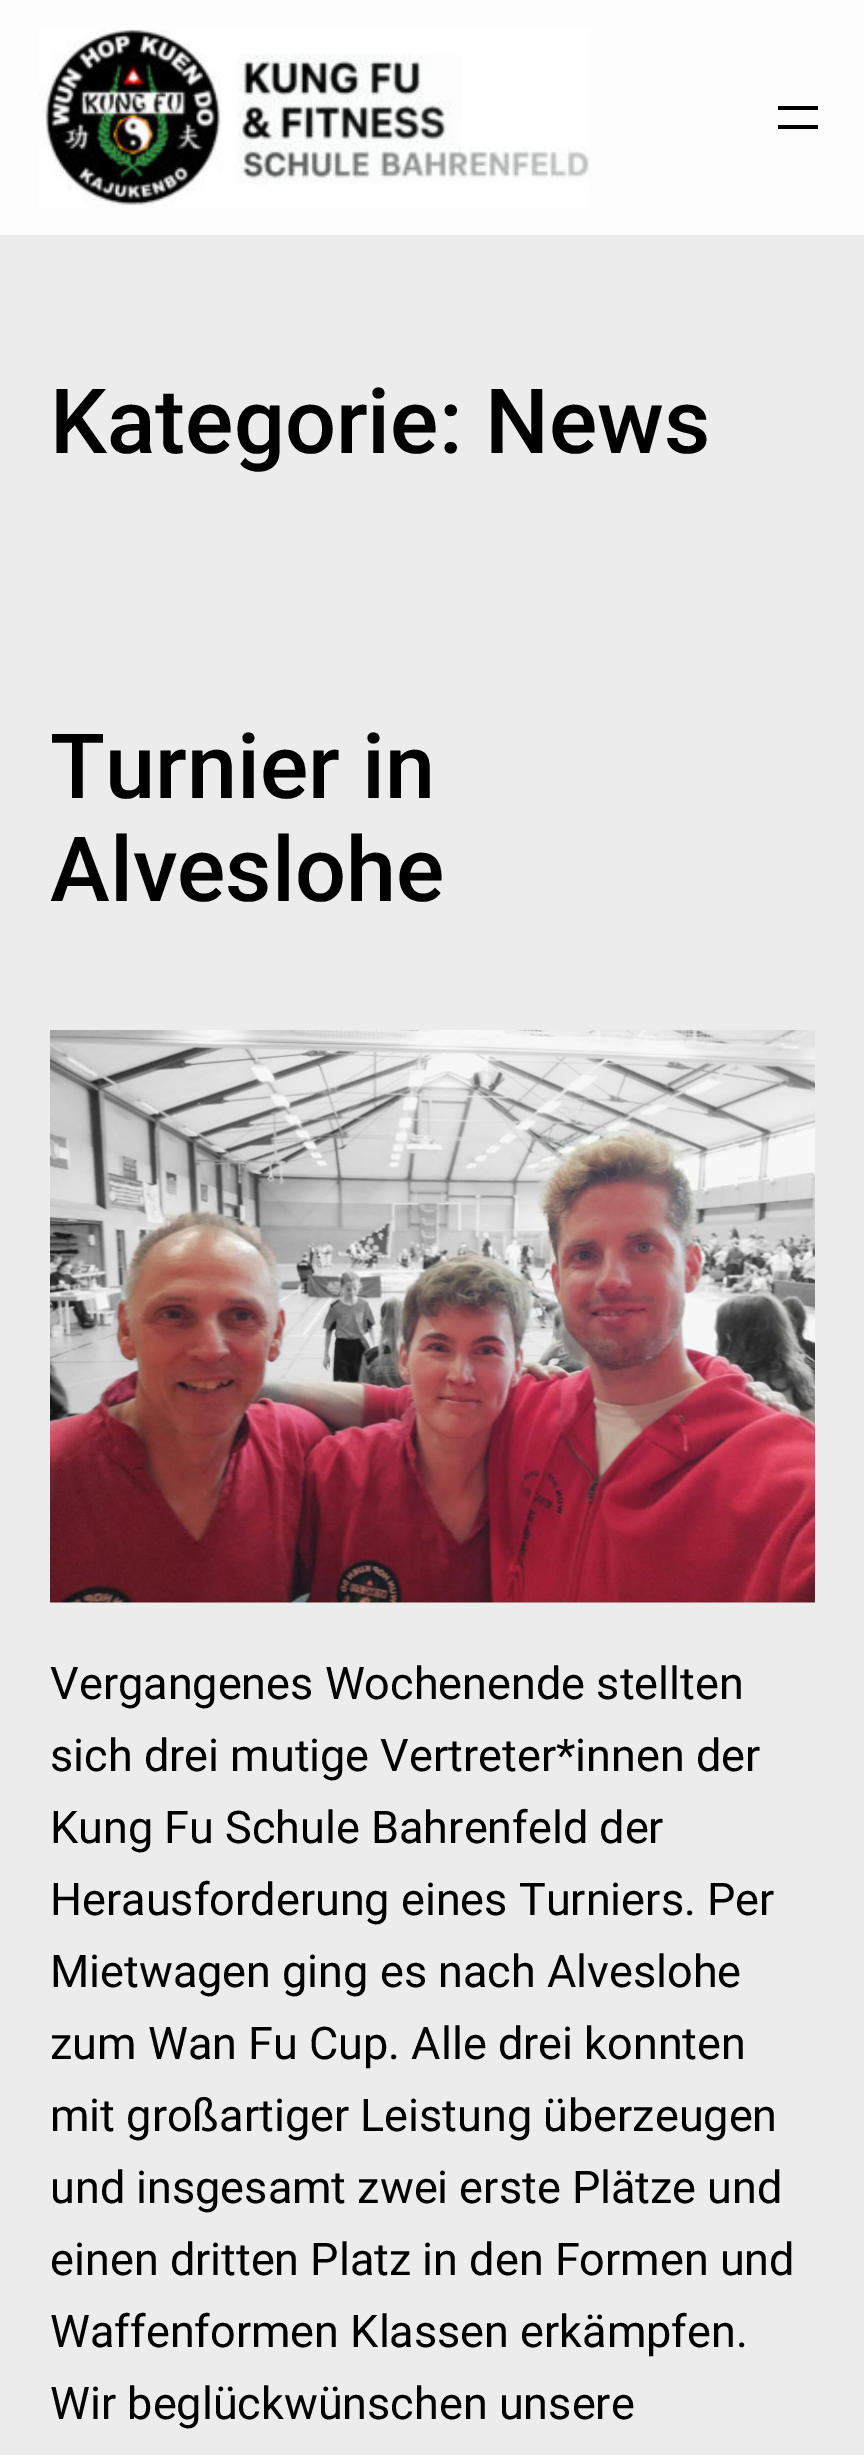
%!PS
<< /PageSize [864 2455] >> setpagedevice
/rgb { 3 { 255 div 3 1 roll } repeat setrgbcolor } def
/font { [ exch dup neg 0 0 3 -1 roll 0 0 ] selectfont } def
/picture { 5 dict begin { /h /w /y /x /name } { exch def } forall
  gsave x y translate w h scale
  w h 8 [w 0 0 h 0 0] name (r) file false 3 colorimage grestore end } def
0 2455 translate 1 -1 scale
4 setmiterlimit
236 236 236 rgb
0 0 864 2455 rectfill
253 253 253 rgb
0 0 864 235 rectfill
(img/1.rgb) 39 29 551 179 picture
0 0 0 rgb
778 106 40 4 rectfill
778 125 40 4 rectfill
(img/2.rgb) 50 1030 765 573 picture
/Roboto-Medium 90 font
[
  [(Kategorie: News) 50 453]
  [(Turnier in) 50 798]
  [(Alveslohe) 50 901]
] { aload pop moveto show } forall
/Roboto-Regular 45 font
[
  [(Vergangenes Wochenende stellten) 50 1699]
  [(sich drei mutige Vertreter*innen der) 50 1771]
  [(Kung Fu Schule Bahrenfeld der) 50 1843]
  [(Herausforderung eines Turniers. Per) 50 1915]
  [(Mietwagen ging es nach Alveslohe) 50 1987]
  [(zum Wan Fu Cup. Alle drei konnten) 50 2059]
  [(mit großartiger Leistung überzeugen) 50 2131]
  [(und insgesamt zwei erste Plätze und) 50 2203]
  [(einen dritten Platz in den Formen und) 50 2275]
  [(Waffenformen Klassen erkämpfen.) 50 2347]
  [(Wir beglückwünschen unsere) 50 2419]
] { aload pop moveto show } forall
showpage
